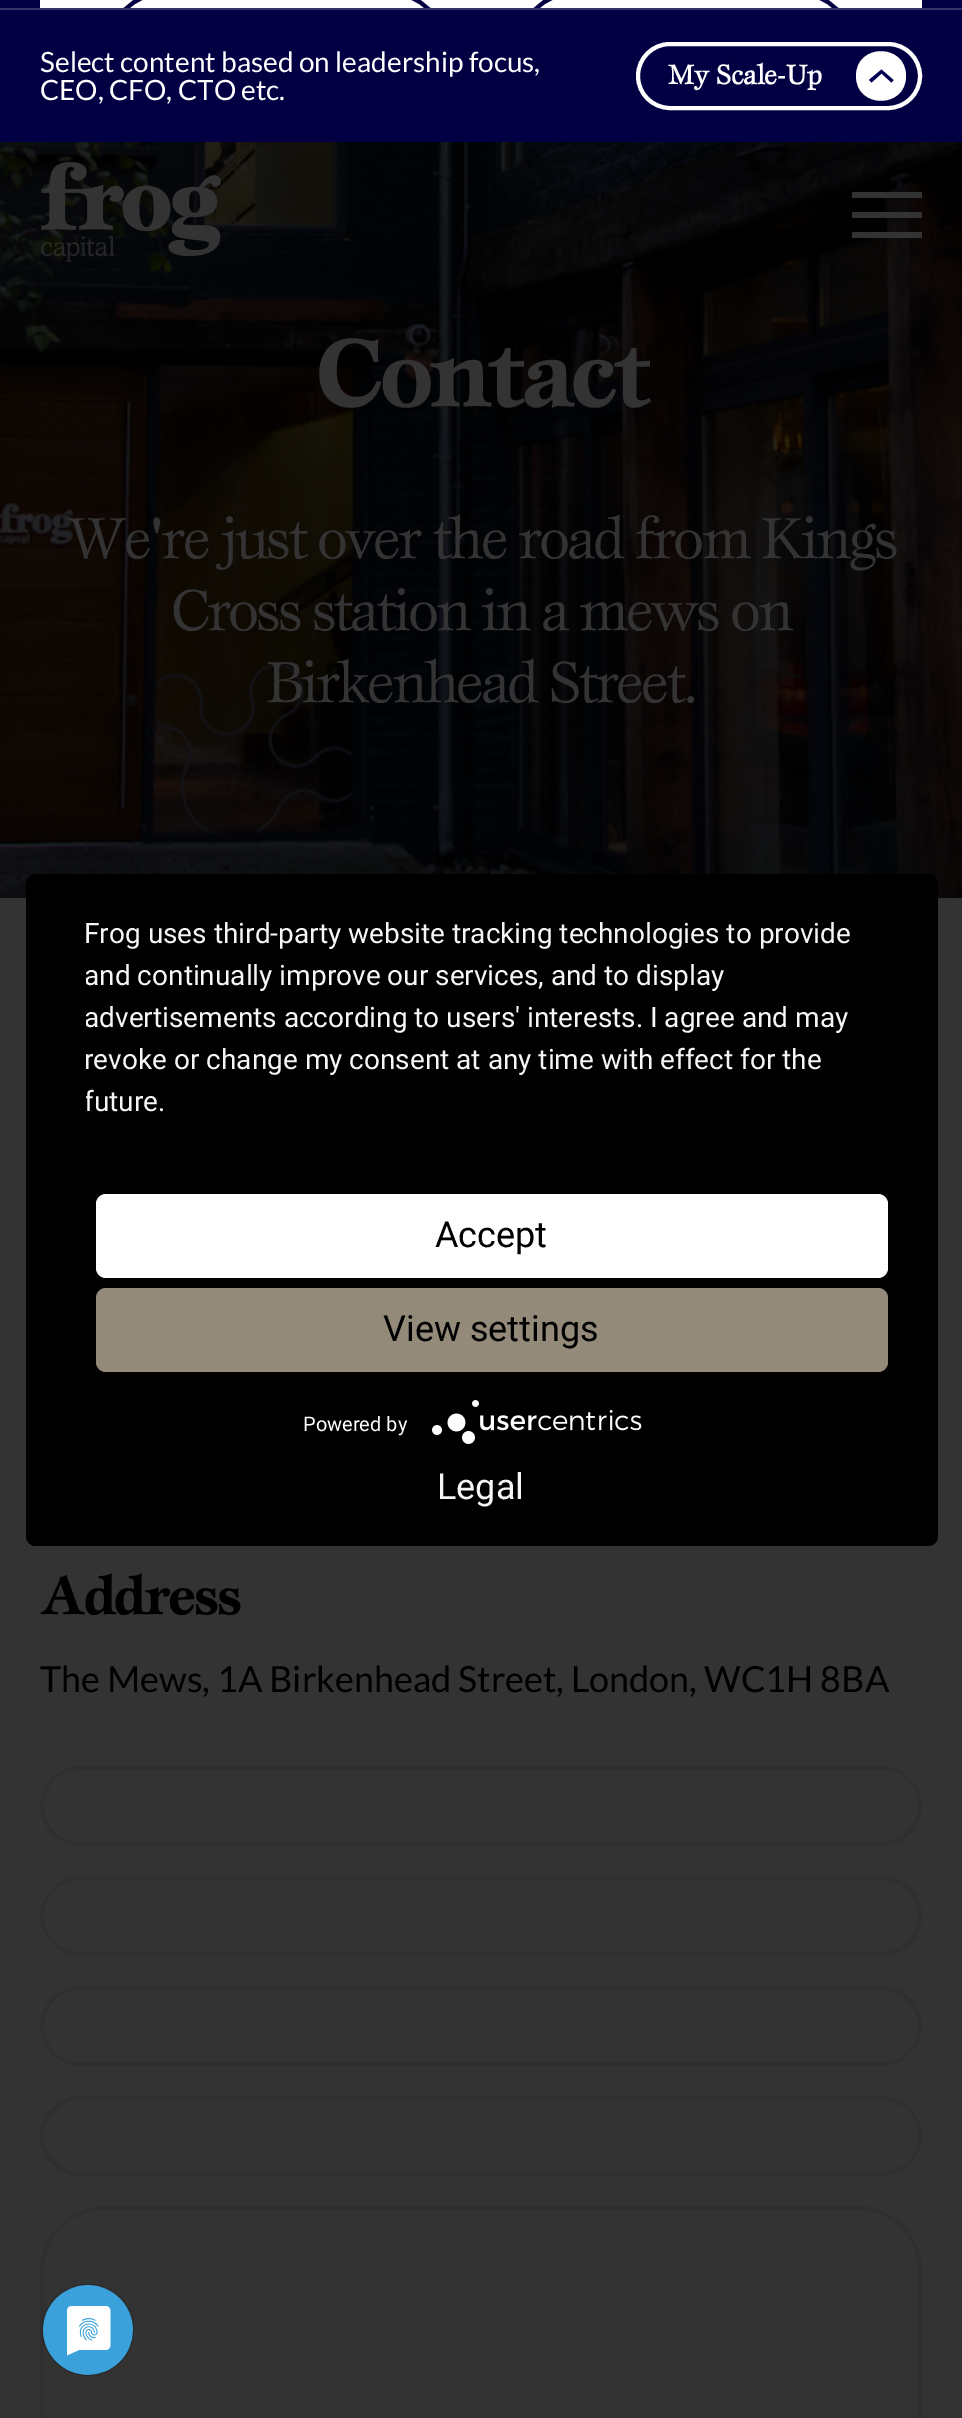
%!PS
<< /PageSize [962 2418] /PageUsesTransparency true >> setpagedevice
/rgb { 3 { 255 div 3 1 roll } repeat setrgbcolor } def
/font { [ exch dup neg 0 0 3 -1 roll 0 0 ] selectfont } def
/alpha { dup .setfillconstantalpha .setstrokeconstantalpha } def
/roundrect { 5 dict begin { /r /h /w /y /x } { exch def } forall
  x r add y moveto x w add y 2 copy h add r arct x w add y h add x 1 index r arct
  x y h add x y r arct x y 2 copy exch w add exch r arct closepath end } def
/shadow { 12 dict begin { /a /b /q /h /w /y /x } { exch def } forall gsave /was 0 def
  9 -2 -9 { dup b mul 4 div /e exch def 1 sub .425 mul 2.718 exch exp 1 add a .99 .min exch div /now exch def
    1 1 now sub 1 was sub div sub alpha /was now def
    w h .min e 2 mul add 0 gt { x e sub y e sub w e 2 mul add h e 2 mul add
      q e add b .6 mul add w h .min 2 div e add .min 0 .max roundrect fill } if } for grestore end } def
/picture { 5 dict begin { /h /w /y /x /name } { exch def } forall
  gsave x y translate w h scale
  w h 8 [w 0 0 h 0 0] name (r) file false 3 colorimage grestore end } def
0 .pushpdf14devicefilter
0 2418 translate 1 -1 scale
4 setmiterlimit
51 51 51 rgb
0 0 962 2418 rectfill
2 0 66 rgb
0 0 962 142 rectfill
255 255 255 rgb
40 0 882 8 rectfill
gsave
0 0 962 8 rectclip
2 0 66 rgb
4 setlinewidth
106 -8 342 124 62 roundrect stroke
516 -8 340 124 62 roundrect stroke
grestore
53 51 104 rgb
0 8 962 2 rectfill
255 255 255 rgb
4 setlinewidth
638 44 282 64 32 roundrect stroke
856 76 moveto 856 43 906 43 906 76 curveto 906 109 856 109 856 76 curveto closepath fill
1 0 80 rgb
881.5 69.5 moveto 869 80 lineto 871.5 82.5 lineto 881.5 73.5 lineto 891.5 82.5 lineto 893.5 80 lineto 882.5 70.5 lineto closepath eofill
(img/2.rgb) 0 142 962 756 picture
(img/1.rgb) 41 162 180 100 picture
[
  [852 212 70 6 51 51 51]
  [852 192 70 6 51 51 51]
  [852 232 70 6 51 51 51]
] { aload pop rgb rectfill } forall
47 47 47 rgb
42 1768 878 76 38 roundrect stroke
42 1878 878 76 38 roundrect stroke
42 1988 878 76 38 roundrect stroke
42 2098 878 76 38 roundrect stroke
42 2208 878 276 62 roundrect stroke
gsave
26 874 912 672 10 roundrect clip newpath
0 0 0 rgb
26 886 912 672 0 36 0.3 shadow
grestore
0 0 0 rgb
26 874 912 672 10 roundrect fill
255 255 255 rgb
96 1194 792 84 10 roundrect fill
147 138 122 rgb
96 1288 792 84 10 roundrect fill
(img/3.rgb) 432 1400 210 44 picture
(img/4.rgb) 42 2284 92 92 picture
/Lato-Regular 28 font
255 255 255 rgb
40 72 moveto (Select content based on leadership focus,) show
40 100 moveto (CEO, CFO, CTO etc.) show
/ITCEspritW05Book-Bold 28 font
668 84 moveto (My Scale-Up) show
/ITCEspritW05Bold-Bold 100 font
51 51 51 rgb
315 406 moveto -5 0 (Contact) ashow
/ITCEspritW05Book-Regular 60 font
67 558 moveto -3 0 (We're just over the road from Kings) ashow
171 630 moveto -3 0 (Cross station in a mews on) ashow
266 702 moveto -3 0 (Birkenhead Street.) ashow
/ITCEspritW05Bold-Bold 56 font
0 0 0 rgb
40 1614 moveto -2.75 0 (Address) ashow
/Lato-Regular 36 font
40 1692 moveto (The Mews, 1A Birkenhead Street, London, WC1H 8BA) show
/Roboto-Regular 28 font
247 245 245 rgb
84 943 moveto (Frog uses third-party website tracking technologies to provide) show
gsave
86 914 792 250 rectclip
84 985 moveto (and continually improve our services, and to display) show
84 1027 moveto (advertisements according to users' interests. I agree and may) show
grestore
84 1069 moveto (revoke or change my consent at any time with effect for the) show
gsave
86 914 792 250 rectclip
84 1111 moveto (future.) show
grestore
/Roboto-Regular 36 font
0 0 0 rgb
435 1247 moveto (Accept) show
383 1341 moveto (View settings) show
/Roboto-Regular 20 font
255 255 255 rgb
303 1431 moveto (Powered by) show
/Roboto-Regular 36 font
247 245 245 rgb
437 1499 moveto (Legal) show
.poppdf14devicefilter showpage
